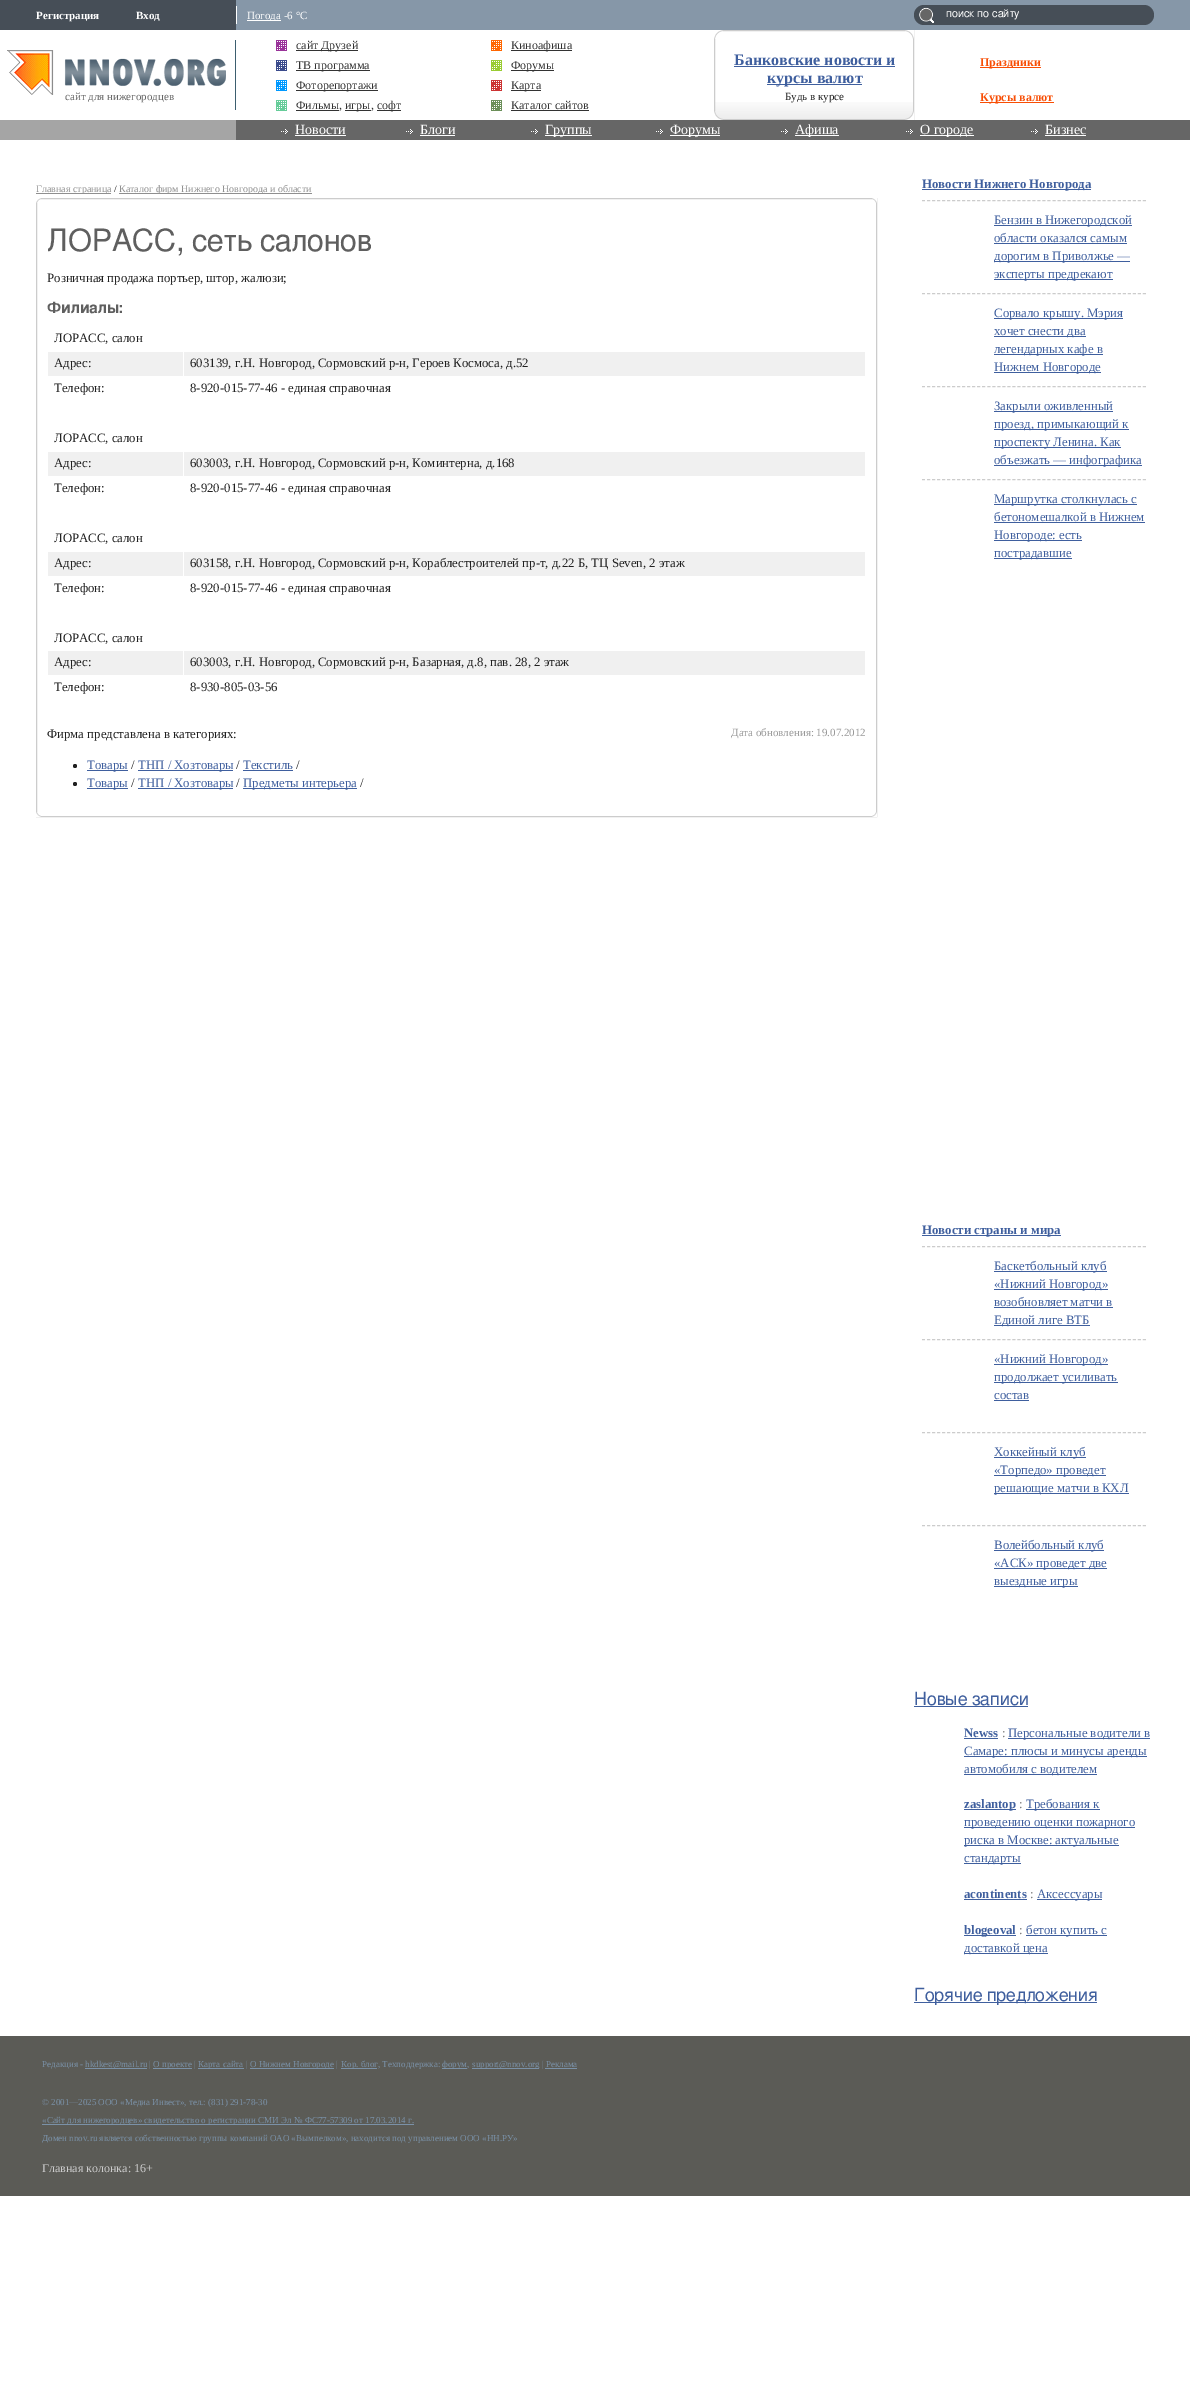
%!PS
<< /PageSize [1190 2390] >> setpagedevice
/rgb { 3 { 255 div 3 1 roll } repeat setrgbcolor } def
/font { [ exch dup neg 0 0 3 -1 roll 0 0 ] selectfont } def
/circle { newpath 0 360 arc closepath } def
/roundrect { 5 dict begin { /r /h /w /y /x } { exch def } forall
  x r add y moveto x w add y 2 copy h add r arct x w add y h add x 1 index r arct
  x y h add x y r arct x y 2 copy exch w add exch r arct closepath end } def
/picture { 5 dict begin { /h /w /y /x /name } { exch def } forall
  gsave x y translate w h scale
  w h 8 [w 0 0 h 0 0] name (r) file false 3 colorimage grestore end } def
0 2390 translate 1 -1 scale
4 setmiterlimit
255 255 255 rgb
0 0 1190 2390 rectfill
[
  [236 0 954 30 134 151 168]
  [0 0 236 30 70 78 87]
  [236 6 1 18 255 255 255]
  [247 20 34 1 255 255 255]
] { aload pop rgb rectfill } forall
70 78 87 rgb
914 5 240 20 10 roundrect fill
(img/1.rgb) 919 7 15 16 picture
(img/2.rgb) 7 50 219 45 picture
61 94 111 rgb
235 40 1 70 rectfill
153 51 153 rgb
276 40 11 11 rectfill
(img/3.rgb) 277 41 9 9 picture
51 51 51 rgb
296 50 62 1 rectfill
255 102 0 rgb
491 40 11 11 rectfill
(img/4.rgb) 492 41 9 9 picture
51 51 51 rgb
511 50 61 1 rectfill
59 75 140 rgb
276 60 11 11 rectfill
(img/5.rgb) 277 61 9 9 picture
51 51 51 rgb
296 70 74 1 rectfill
153 204 51 rgb
491 60 11 11 rectfill
(img/6.rgb) 492 61 9 9 picture
51 51 51 rgb
511 70 43 1 rectfill
0 153 255 rgb
276 80 11 11 rectfill
(img/7.rgb) 277 81 9 9 picture
51 51 51 rgb
296 90 82 1 rectfill
204 51 51 rgb
491 80 11 11 rectfill
(img/8.rgb) 492 81 9 9 picture
51 51 51 rgb
511 90 30 1 rectfill
102 204 153 rgb
276 100 11 11 rectfill
(img/9.rgb) 277 101 9 9 picture
[
  [296 110 43 1 51 51 51]
  [345 110 26 1 51 51 51]
  [377 110 24 1 51 51 51]
  [491 100 11 11 107 143 89]
] { aload pop rgb rectfill } forall
(img/10.rgb) 492 101 9 9 picture
51 51 51 rgb
511 110 78 1 rectfill
(img/11.rgb) 715 102 198 17 picture
204 204 204 rgb
714.5 30.5 199 89 rectstroke
(img/12.rgb) 714 30 9 9 picture
(img/13.rgb) 905 30 9 9 picture
63 95 158 rgb
734 66 161 1 rectfill
767 84 95 1 rectfill
(img/14.rgb) 714 111 9 9 picture
(img/15.rgb) 905 111 9 9 picture
[
  [980 67 61 1 248 78 5]
  [980 102 74 1 248 78 5]
  [236 120 954 20 102 102 102]
  [0 120 236 20 165 165 165]
] { aload pop rgb rectfill } forall
(img/16.rgb) 281 129 7 5 picture
255 255 255 rgb
295 135 51 1 rectfill
(img/16.rgb) 406 129 7 5 picture
420 135 35 1 rectfill
(img/16.rgb) 531 129 7 5 picture
545 135 47 1 rectfill
(img/16.rgb) 656 129 7 5 picture
670 135 50 1 rectfill
(img/16.rgb) 781 129 7 5 picture
795 135 44 1 rectfill
(img/16.rgb) 906 129 7 5 picture
920 135 54 1 rectfill
(img/16.rgb) 1031 129 7 5 picture
[
  [1045 135 41 1 255 255 255]
  [36 193 75 1 143 143 143]
  [119 193 193 1 143 143 143]
] { aload pop rgb rectfill } forall
204 204 204 rgb
36.5 198.5 840 618 rectstroke
(img/17.rgb) 36 198 5 5 picture
(img/18.rgb) 872 198 5 5 picture
[
  [48 352 817 24 240 240 240]
  [183 351 1 26 255 255 255]
  [48 452 817 24 240 240 240]
  [183 451 1 26 255 255 255]
  [48 552 817 24 240 240 240]
  [183 551 1 26 255 255 255]
  [48 651 817 24 240 240 240]
  [183 650 1 26 255 255 255]
] { aload pop rgb rectfill } forall
32 32 32 rgb
75 766 2 circle fill
[
  [87 770 41 1 63 95 158]
  [138 770 95 1 63 95 158]
  [243 770 50 1 63 95 158]
] { aload pop rgb rectfill } forall
32 32 32 rgb
75 784 2 circle fill
[
  [87 788 41 1 63 95 158]
  [138 788 95 1 63 95 158]
  [243 788 114 1 63 95 158]
] { aload pop rgb rectfill } forall
(img/19.rgb) 36 812 5 5 picture
(img/20.rgb) 872 812 5 5 picture
922 189 169 1 rectfill
204 204 204 rgb
[3 2.02] 0 setdash
922 200.5 moveto 1146 200.5 lineto stroke
[
  [994 225 138 1 63 95 158]
  [994 243 133 1 63 95 158]
  [994 261 136 1 63 95 158]
  [994 279 119 1 63 95 158]
] { aload pop rgb rectfill } forall
204 204 204 rgb
922 293.5 moveto 1146 293.5 lineto stroke
[
  [994 318 129 1 63 95 158]
  [994 336 92 1 63 95 158]
  [994 354 109 1 63 95 158]
  [994 372 107 1 63 95 158]
] { aload pop rgb rectfill } forall
204 204 204 rgb
922 386.5 moveto 1146 386.5 lineto stroke
[
  [994 411 119 1 63 95 158]
  [994 429 135 1 63 95 158]
  [994 447 127 1 63 95 158]
  [994 465 148 1 63 95 158]
] { aload pop rgb rectfill } forall
204 204 204 rgb
922 479.5 moveto 1146 479.5 lineto stroke
[
  [994 504 143 1 63 95 158]
  [994 522 151 1 63 95 158]
  [994 540 88 1 63 95 158]
  [994 558 78 1 63 95 158]
  [922 1235 139 1 63 95 158]
] { aload pop rgb rectfill } forall
204 204 204 rgb
922 1246.5 moveto 1146 1246.5 lineto stroke
[
  [994 1271 113 1 63 95 158]
  [994 1289 114 1 63 95 158]
  [994 1307 119 1 63 95 158]
  [994 1325 96 1 63 95 158]
] { aload pop rgb rectfill } forall
204 204 204 rgb
922 1339.5 moveto 1146 1339.5 lineto stroke
[
  [994 1364 114 1 63 95 158]
  [994 1382 124 1 63 95 158]
  [994 1400 35 1 63 95 158]
] { aload pop rgb rectfill } forall
204 204 204 rgb
922 1432.5 moveto 1146 1432.5 lineto stroke
[
  [994 1457 92 1 63 95 158]
  [994 1475 112 1 63 95 158]
  [994 1493 135 1 63 95 158]
] { aload pop rgb rectfill } forall
204 204 204 rgb
922 1525.5 moveto 1146 1525.5 lineto stroke
[
  [994 1550 110 1 63 95 158]
  [994 1568 113 1 63 95 158]
  [994 1586 84 1 63 95 158]
  [914 1706 114 1 63 95 158]
  [964 1738 34 1 63 95 158]
  [1008 1738 142 1 63 95 158]
  [964 1756 183 1 63 95 158]
  [964 1774 133 1 63 95 158]
  [964 1809 52 1 63 95 158]
  [1026 1809 74 1 63 95 158]
  [964 1827 171 1 63 95 158]
  [964 1845 155 1 63 95 158]
  [964 1863 57 1 63 95 158]
  [964 1899 63 1 63 95 158]
  [1037 1899 65 1 63 95 158]
  [964 1935 52 1 63 95 158]
  [1026 1935 81 1 63 95 158]
  [964 1953 84 1 63 95 158]
  [914 2002 183 1 63 95 158]
  [0 2036 1190 160 91 91 86]
  [85 2068 62 1 122 145 167]
  [153 2068 39 1 122 145 167]
  [198 2068 46 1 122 145 167]
  [250 2068 84 1 122 145 167]
  [341 2068 36 1 122 145 167]
  [442 2068 25 1 122 145 167]
  [472 2068 67 1 122 145 167]
  [545 2068 32 1 122 145 167]
  [42 2124 372 1 122 145 167]
] { aload pop rgb rectfill } forall
/LiberationSerif-Bold 11 font
255 255 255 rgb
36 19 moveto (Регистрация) show
136 19 moveto (Вход) show
/LiberationSerif-Regular 11 font
247 19 moveto (Погода -6 °C) show
/FreeSans-Regular 11 font
946 17 moveto (поиск по сайту) show
/LiberationSerif-Regular 11 font
102 102 102 rgb
65 100 moveto (сайт для нижегородцев) show
/LiberationSerif-Regular 12 font
51 51 51 rgb
[
  [(сайт Друзей) 296 49]
  [(Киноафиша) 511 49]
  [(ТВ программа) 296 69]
  [(Форумы) 511 69]
  [(Фоторепортажи) 296 89]
  [(Карта) 511 89]
  [(,) 339 109]
  [(Фильмы) 296 109]
  [(игры) 345 109]
  [(,) 371 109]
  [(софт) 377 109]
  [(Каталог сайтов) 511 109]
] { aload pop moveto show } forall
/LiberationSerif-Bold 16 font
63 95 158 rgb
734 65 moveto (Банковские новости и) show
767 83 moveto (курсы валют) show
/LiberationSerif-Regular 11 font
32 32 32 rgb
785 100 moveto (Будь в курсе) show
/LiberationSerif-Bold 12 font
248 78 5 rgb
980 66 moveto (Праздники) show
980 101 moveto (Курсы валют) show
/LiberationSerif-Regular 14 font
255 255 255 rgb
[
  [(Новости) 295 134]
  [(Блоги) 420 134]
  [(Группы) 545 134]
  [(Форумы) 670 134]
  [(Афиша) 795 134]
  [(О городе) 920 134]
  [(Бизнес) 1045 134]
] { aload pop moveto show } forall
/LiberationSerif-Regular 10 font
143 143 143 rgb
36 192 moveto (Главная страница) show
32 32 32 rgb
114 192 moveto (/) show
143 143 143 rgb
119 192 moveto (Каталог фирм Нижнего Новгорода и области) show
/FreeSans-Regular 30.75 font
95 95 95 rgb
47 251 moveto (ЛОРАСС, сеть салонов) show
/LiberationSerif-Regular 12.8 font
32 32 32 rgb
47 282 moveto (Розничная продажа портьер, штор, жалюзи;) show
/FreeSans-SemiBold 15.5 font
95 95 95 rgb
47 313 moveto (Филиалы:) show
/LiberationSerif-Regular 12.8 font
32 32 32 rgb
[
  [(ЛОРАСС, салон) 54 342]
  [(Адрес:) 54 367]
  [(603139, г.Н. Новгород, Сормовский р-н, Героев Космоса, д.52) 190 367]
  [(Телефон:) 54 392]
  [(8-920-015-77-46 - единая справочная) 190 392]
  [(ЛОРАСС, салон) 54 442]
  [(Адрес:) 54 467]
  [(603003, г.Н. Новгород, Сормовский р-н, Коминтерна, д.168) 190 467]
  [(Телефон:) 54 492]
  [(8-920-015-77-46 - единая справочная) 190 492]
  [(ЛОРАСС, салон) 54 542]
  [(Адрес:) 54 567]
  [(603158, г.Н. Новгород, Сормовский р-н, Кораблестроителей пр-т, д.22 Б, ТЦ Seven, 2 этаж) 190 567]
  [(Телефон:) 54 592]
  [(8-920-015-77-46 - единая справочная) 190 592]
  [(ЛОРАСС, салон) 54 642]
  [(Адрес:) 54 666]
  [(603003, г.Н. Новгород, Сормовский р-н, Базарная, д.8, пав. 28, 2 этаж) 190 666]
  [(Телефон:) 54 691]
  [(8-930-805-03-56) 190 691]
  [(Фирма представлена в категориях:) 47 738]
] { aload pop moveto show } forall
/LiberationSerif-Regular 11 font
153 153 153 rgb
731 736 moveto (Дата обновления: 19.07.2012) show
/LiberationSerif-Regular 12.8 font
63 95 158 rgb
87 769 moveto (Товары) show
32 32 32 rgb
131 769 moveto (/) show
63 95 158 rgb
138 769 moveto (ТНП / Хозтовары) show
32 32 32 rgb
236 769 moveto (/) show
63 95 158 rgb
243 769 moveto (Текстиль) show
32 32 32 rgb
296 769 moveto (/) show
63 95 158 rgb
87 787 moveto (Товары) show
32 32 32 rgb
131 787 moveto (/) show
63 95 158 rgb
138 787 moveto (ТНП / Хозтовары) show
32 32 32 rgb
236 787 moveto (/) show
63 95 158 rgb
243 787 moveto (Предметы интерьера) show
32 32 32 rgb
360 787 moveto (/) show
/LiberationSerif-Bold 12.8 font
63 95 158 rgb
922 188 moveto (Новости Нижнего Новгорода) show
/LiberationSerif-Regular 12.8 font
[
  [(Бензин в Нижегородской) 994 224]
  [(области оказался самым) 994 242]
  [(дорогим в Приволжье —) 994 260]
  [(эксперты предрекают) 994 278]
  [(Сорвало крышу. Мэрия) 994 317]
  [(хочет снести два) 994 335]
  [(легендарных кафе в) 994 353]
  [(Нижнем Новгороде) 994 371]
  [(Закрыли оживленный) 994 410]
  [(проезд, примыкающий к) 994 428]
  [(проспекту Ленина. Как) 994 446]
  [(объезжать — инфографика) 994 464]
  [(Маршрутка столкнулась с) 994 503]
  [(бетономешалкой в Нижнем) 994 521]
  [(Новгороде: есть) 994 539]
  [(пострадавшие) 994 557]
] { aload pop moveto show } forall
/LiberationSerif-Bold 12.8 font
922 1234 moveto (Новости страны и мира) show
/LiberationSerif-Regular 12.8 font
[
  [(Баскетбольный клуб) 994 1270]
  [(«Нижний Новгород») 994 1288]
  [(возобновляет матчи в) 994 1306]
  [(Единой лиге ВТБ) 994 1324]
  [(«Нижний Новгород») 994 1363]
  [(продолжает усиливать) 994 1381]
  [(состав) 994 1399]
  [(Хоккейный клуб) 994 1456]
  [(«Торпедо» проведет) 994 1474]
  [(решающие матчи в КХЛ) 994 1492]
  [(Волейбольный клуб) 994 1549]
  [(«АСК» проведет две) 994 1567]
  [(выездные игры) 994 1585]
] { aload pop moveto show } forall
/FreeSans-Regular 18 font
914 1705 moveto (Новые записи) show
/LiberationSerif-Bold 12.8 font
964 1737 moveto (Newss) show
/LiberationSerif-Regular 12.8 font
128 128 128 rgb
1002 1737 moveto (:) show
63 95 158 rgb
[
  [(Персональные водители в) 1008 1737]
  [(Самаре: плюсы и минусы аренды) 964 1755]
  [(автомобиля с водителем) 964 1773]
] { aload pop moveto show } forall
/LiberationSerif-Bold 12.8 font
964 1808 moveto (zaslantop) show
/LiberationSerif-Regular 12.8 font
128 128 128 rgb
1019 1808 moveto (:) show
63 95 158 rgb
[
  [(Требования к) 1026 1808]
  [(проведению оценки пожарного) 964 1826]
  [(риска в Москве: актуальные) 964 1844]
  [(стандарты) 964 1862]
] { aload pop moveto show } forall
/LiberationSerif-Bold 12.8 font
964 1898 moveto (acontinents) show
/LiberationSerif-Regular 12.8 font
128 128 128 rgb
1030 1898 moveto (:) show
63 95 158 rgb
1037 1898 moveto (Аксессуары) show
/LiberationSerif-Bold 12.8 font
964 1934 moveto (blogeoval) show
/LiberationSerif-Regular 12.8 font
128 128 128 rgb
1019 1934 moveto (:) show
63 95 158 rgb
1026 1934 moveto (бетон купить с) show
964 1952 moveto (доставкой цена) show
/FreeSans-Regular 18 font
914 2001 moveto (Горячие предложения) show
/LiberationSerif-Regular 9 font
122 145 167 rgb
[
  [(Редакция -) 42 2067]
  [(hkdkest@mail.ru |) 85 2067]
  [(О проекте |) 153 2067]
  [(Карта сайта |) 198 2067]
  [(О Нижнем Новгороде |) 250 2067]
  [(Кор. блог, Техподдержка:) 341 2067]
  [(форум,) 442 2067]
  [(support@nnov.org | Реклама) 472 2067]
  [(© 2001—2025 ООО «Медиа Инвест», тел.: \(831\) 291-78-30) 42 2105]
  [(«Сайт для нижегородцев» свидетельство о регистрации СМИ Эл № ФС77-57309 от 17.03.2014 г.) 42 2123]
  [(Домен nnov.ru является собственностью группы компаний ОАО «Вымпелком», находится под управлением ООО «НН.РУ») 42 2141]
] { aload pop moveto show } forall
/LiberationSerif-Regular 12 font
204 204 204 rgb
42 2172 moveto (Главная колонка: 16+) show
showpage
